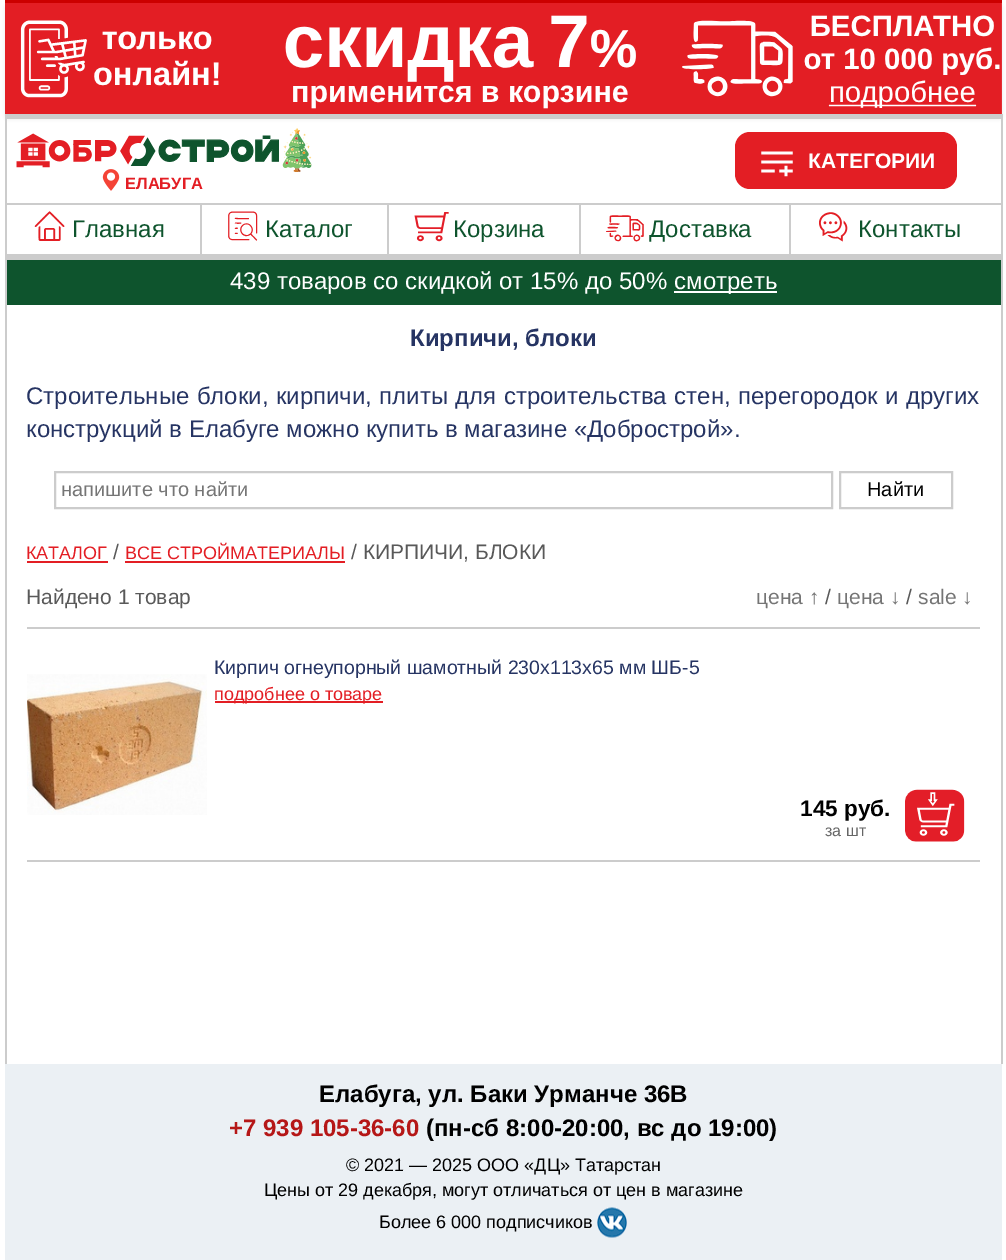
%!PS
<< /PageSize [1006 1260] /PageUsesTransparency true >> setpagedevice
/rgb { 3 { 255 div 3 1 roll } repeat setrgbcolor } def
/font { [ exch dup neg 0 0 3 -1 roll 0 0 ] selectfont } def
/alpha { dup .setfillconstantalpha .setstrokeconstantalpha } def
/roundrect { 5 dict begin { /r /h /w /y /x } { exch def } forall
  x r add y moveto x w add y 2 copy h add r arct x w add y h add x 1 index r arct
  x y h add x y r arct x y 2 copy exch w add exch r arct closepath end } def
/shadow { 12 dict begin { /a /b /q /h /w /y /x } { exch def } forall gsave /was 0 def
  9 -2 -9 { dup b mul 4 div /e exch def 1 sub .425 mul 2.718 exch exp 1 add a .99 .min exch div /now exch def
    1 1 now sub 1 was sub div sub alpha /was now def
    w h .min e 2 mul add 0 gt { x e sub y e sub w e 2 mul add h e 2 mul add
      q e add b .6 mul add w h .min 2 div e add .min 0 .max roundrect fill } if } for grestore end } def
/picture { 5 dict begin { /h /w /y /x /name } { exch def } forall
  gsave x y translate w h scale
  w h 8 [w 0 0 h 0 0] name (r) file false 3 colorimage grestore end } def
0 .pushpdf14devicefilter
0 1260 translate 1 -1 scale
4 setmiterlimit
255 255 255 rgb
0 0 1006 1260 rectfill
0 0 0 rgb
8 8 991 108 0 3 0.3 shadow
204 0 0 rgb
5 0 997 3 rectfill
(img/1.rgb) 5 3 997 111 picture
[
  [5 114 997 5 204 204 204]
  [1001 114 2 950 204 204 204]
  [5 255 997 5 204 204 204]
  [5 114 2 950 204 204 204]
] { aload pop rgb rectfill } forall
227 30 36 rgb
735 132 222 57 15 roundrect fill
(img/2.rgb) 761 151 32 26 picture
(img/3.rgb) 16 128 296 44 picture
(img/4.rgb) 102 169 18 22 picture
[
  [6 203 995 2 204 204 204]
  [6 254 995 1 204 204 204]
  [200 204 2 50 204 204 204]
] { aload pop rgb rectfill } forall
(img/5.rgb) 34 211 31 30 picture
387 204 2 50 rectfill
(img/6.rgb) 228 211 30 30 picture
579 204 2 50 rectfill
(img/7.rgb) 414 212 35 30 picture
789 204 2 50 rectfill
(img/8.rgb) 606 215 38 27 picture
(img/9.rgb) 819 212 29 30 picture
14 84 45 rgb
7 260 994 45 rectfill
255 255 255 rgb
674 291 103 2 rectfill
204 204 204 rgb
2 setlinewidth
55 472 777 36 rectstroke
840 472 112 36 rectstroke
[
  [27 561 81 2 227 30 36]
  [125 561 220 2 227 30 36]
  [27 627 953 2 204 204 204]
  [27 860 953 2 204 204 204]
] { aload pop rgb rectfill } forall
(img/10.rgb) 27 674 180 141 picture
227 30 36 rgb
215 701 168 2 rectfill
(img/11.rgb) 905 789 60 53 picture
235 240 244 rgb
5 1064 997 196 rectfill
(img/12.rgb) 597 1207 30 31 picture
/LiberationSans-Bold 21 font
255 255 255 rgb
808 168 moveto (КАТЕГОРИИ) show
/LiberationSans-Bold 16.5 font
227 30 36 rgb
125 189 moveto (ЕЛАБУГА) show
/LiberationSans-Regular 24 font
14 84 45 rgb
[
  [(Главная) 72 237]
  [(Каталог) 265 237]
  [(Корзина) 453 237]
  [(Доставка) 649 237]
  [(Контакты) 858 237]
] { aload pop moveto show } forall
255 255 255 rgb
230 289 moveto (439 товаров со скидкой от 15% до 50%) show
674 289 moveto (смотреть) show
/LiberationSans-Bold 24 font
38 52 99 rgb
410 346 moveto (Кирпичи, блоки) show
/LiberationSans-Regular 24 font
26 404 moveto 0.75 0 32 (Строительные блоки, кирпичи, плиты для строительства стен, перегородок и других) widthshow
26 437 moveto (конструкций в Елабуге можно купить в магазине «Добрострой».) show
/LiberationSans-Regular 20 font
117 117 117 rgb
61 496 moveto (напишите что найти) show
0 0 0 rgb
867 496 moveto (Найти) show
/LiberationSans-Regular 18 font
227 30 36 rgb
26 559 moveto (КАТАЛОГ) show
/LiberationSans-Regular 21 font
89 89 89 rgb
113 559 moveto (/) show
/LiberationSans-Regular 18 font
227 30 36 rgb
125 559 moveto (ВСЕ СТРОЙМАТЕРИАЛЫ) show
/LiberationSans-Regular 21 font
89 89 89 rgb
351 559 moveto (/ КИРПИЧИ, БЛОКИ) show
26 604 moveto (Найдено 1 товар) show
117 117 117 rgb
756 604 moveto (цена ↑) show
89 89 89 rgb
825 604 moveto (/) show
117 117 117 rgb
837 604 moveto (цена ↓) show
89 89 89 rgb
906 604 moveto (/) show
117 117 117 rgb
918 604 moveto (sale ↓) show
/LiberationSans-Regular 19.5 font
38 52 99 rgb
214 674 moveto (Кирпич огнеупорный шамотный 230х113х65 мм ШБ-5) show
/LiberationSans-Regular 18 font
227 30 36 rgb
214 700 moveto (подробнее о товаре) show
/LiberationSans-Bold 22.5 font
0 0 0 rgb
800 816 moveto (145 руб.) show
/LiberationSans-Regular 16 font
102 102 102 rgb
825 836 moveto (за шт) show
/LiberationSans-Bold 24 font
0 0 0 rgb
319 1102 moveto (Елабуга, ул. Баки Урманче 36В) show
181 23 23 rgb
229 1136 moveto (+7 939 105-36-60) show
0 0 0 rgb
426 1136 moveto (\(пн-сб 8:00-20:00, вс до 19:00\)) show
/LiberationSans-Regular 18 font
[
  [(© 2021 — 2025 ООО «ДЦ» Татарстан) 346 1171]
  [(Цены от 29 декабря, могут отличаться от цен в магазине) 264 1196]
  [(Более 6 000 подписчиков) 379 1228]
] { aload pop moveto show } forall
.poppdf14devicefilter showpage
